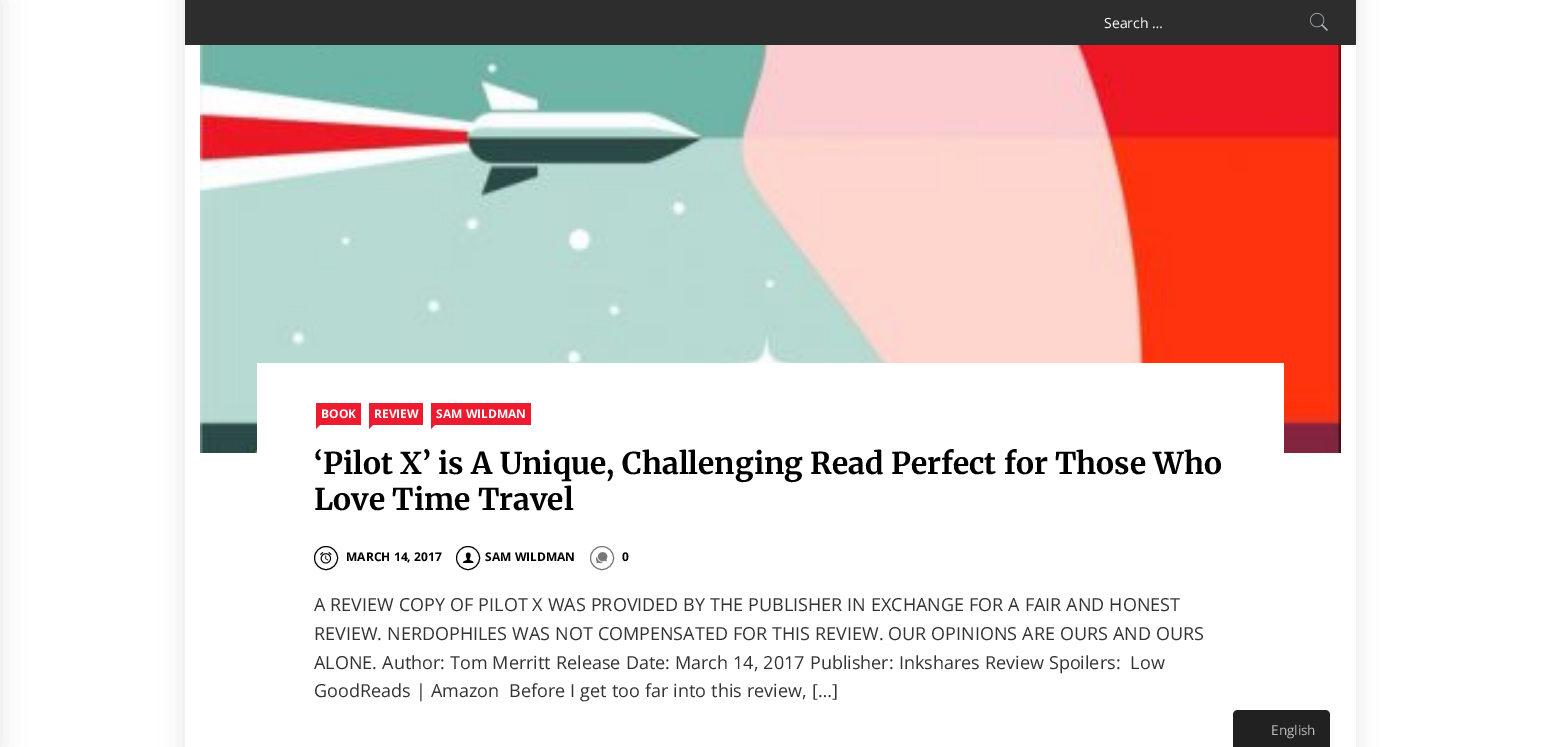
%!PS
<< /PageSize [1541 747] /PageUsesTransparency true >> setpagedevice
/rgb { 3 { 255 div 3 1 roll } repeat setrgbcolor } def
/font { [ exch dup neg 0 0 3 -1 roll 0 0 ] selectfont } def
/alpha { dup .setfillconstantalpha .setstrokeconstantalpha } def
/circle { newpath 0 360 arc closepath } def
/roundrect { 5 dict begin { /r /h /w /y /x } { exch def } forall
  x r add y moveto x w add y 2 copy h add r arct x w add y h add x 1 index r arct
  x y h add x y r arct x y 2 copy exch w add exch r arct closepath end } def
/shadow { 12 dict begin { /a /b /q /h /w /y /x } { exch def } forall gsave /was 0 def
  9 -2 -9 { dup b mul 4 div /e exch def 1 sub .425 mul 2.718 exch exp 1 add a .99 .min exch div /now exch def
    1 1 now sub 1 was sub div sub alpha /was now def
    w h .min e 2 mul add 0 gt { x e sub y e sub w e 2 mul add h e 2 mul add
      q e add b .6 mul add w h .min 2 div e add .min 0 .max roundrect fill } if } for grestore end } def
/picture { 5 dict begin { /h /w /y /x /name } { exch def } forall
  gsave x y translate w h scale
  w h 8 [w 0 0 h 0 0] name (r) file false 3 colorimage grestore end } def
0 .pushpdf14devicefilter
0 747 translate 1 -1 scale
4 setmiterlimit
255 255 255 rgb
0 0 1541 747 rectfill
gsave
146 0 moveto 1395 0 lineto 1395 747 lineto 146 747 lineto closepath 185 -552 moveto 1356 -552 lineto 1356 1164 lineto 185 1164 lineto closepath eoclip newpath
0 0 0 rgb
185 -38 1171 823 0 12.5 0.1 shadow
grestore
0 0 0 rgb
-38 0 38 747 0 12.5 0.1 shadow
45 45 45 rgb
185 0 1171 45 rectfill
(img/1.rgb) 1310 13 18 18 picture
(img/2.rgb) 200 45 1141 408 picture
255 255 255 rgb
257 363 1027 90 rectfill
237 27 47 rgb
316 403 45 22 rectfill
316 429 moveto 316 425 lineto 320 425 lineto closepath 369 429 moveto 369 425 lineto 373 425 lineto closepath fill
369 403 54 22 rectfill
431 403 100 22 rectfill
431 429 moveto 431 425 lineto 435 425 lineto closepath fill
0 0 0 rgb
326 558 11.5 circle stroke
(img/3.rgb) 320 552 12 12 picture
468 558 11.5 circle stroke
(img/4.rgb) 463 552 11 11 picture
119 119 119 rgb
602 558 11.5 circle stroke
(img/5.rgb) 596 552 12 12 picture
33 33 33 rgb
1238 710 moveto 1325 710 lineto 1328 710 1330 712 1330 715 curveto 1330 747 lineto 1233 747 lineto 1233 715 lineto 1233 712 1235 710 1238 710 curveto closepath fill
/OpenSans-Regular 14 font
255 255 255 rgb
1104 28 moveto (Search …) show
/OpenSans-Bold 12 font
321 418 moveto (BOOK) show
374 418 moveto (REVIEW) show
436 418 moveto 0.25 0 32 (SAM WILDMAN) widthshow
/Merriweather-Bold 30 font
0 0 0 rgb
314 474 moveto 0.25 0 32 (‘Pilot X’ is A Unique, Challenging Read Perfect for Those Who) widthshow
314 510 moveto 0.25 0 32 (Love Time Travel) widthshow
/OpenSans-Bold 12 font
346 561 moveto 0.25 0 32 (MARCH 14, 2017) widthshow
485 561 moveto 0.25 0 32 (SAM WILDMAN) widthshow
622 561 moveto (0) show
/OpenSans-Regular 18 font
51 51 51 rgb
314 611 moveto 0.3 0 32 (A REVIEW COPY OF PILOT X WAS PROVIDED BY THE PUBLISHER IN EXCHANGE FOR A FAIR AND HONEST) widthshow
314 640 moveto 0.3 0 32 (REVIEW. NERDOPHILES WAS NOT COMPENSATED FOR THIS REVIEW. OUR OPINIONS ARE OURS AND OURS) widthshow
314 669 moveto 0.4 0 32 (ALONE. Author: Tom Merritt Release Date: March 14, 2017 Publisher: Inkshares Review Spoilers:  Low) widthshow
314 697 moveto 0.4 0 32 (GoodReads | Amazon  Before I get too far into this review, […]) widthshow
/OpenSans-Regular 13.5 font
189 189 189 rgb
1271 735 moveto (English) show
.poppdf14devicefilter showpage
